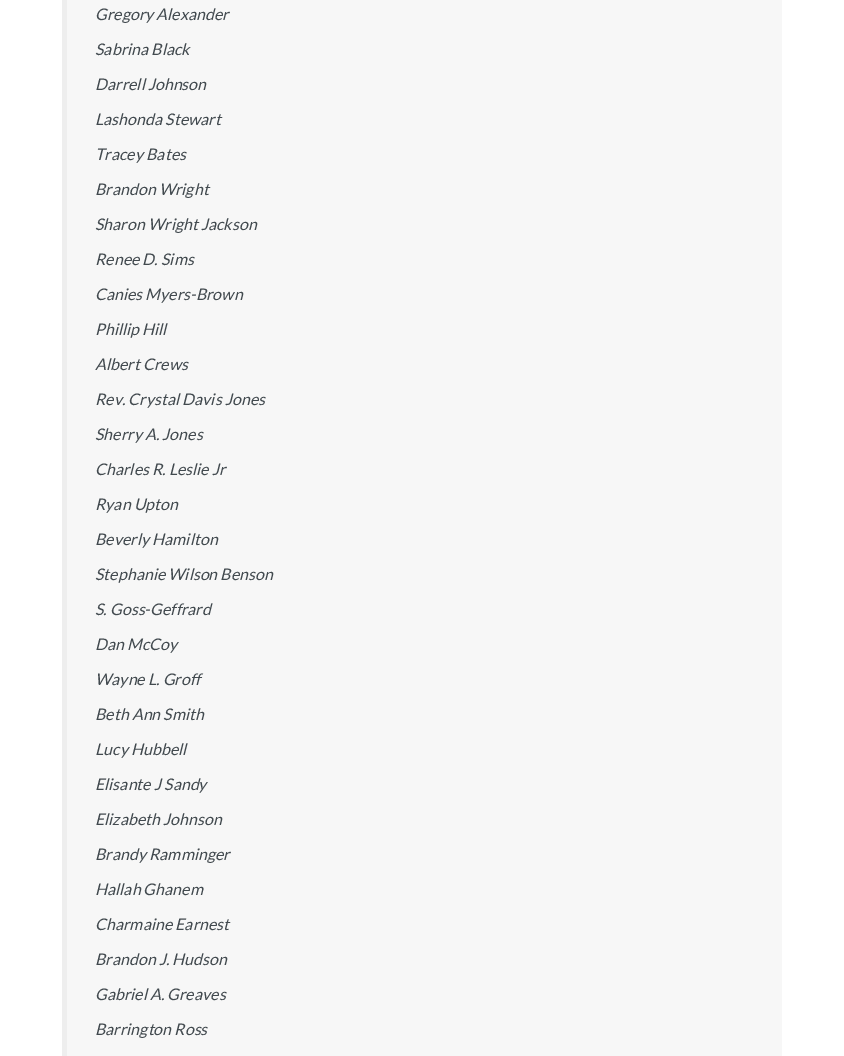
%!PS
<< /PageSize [844 1056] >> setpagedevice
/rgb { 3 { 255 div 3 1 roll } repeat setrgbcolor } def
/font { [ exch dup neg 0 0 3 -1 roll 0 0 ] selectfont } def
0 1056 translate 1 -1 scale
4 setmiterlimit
255 255 255 rgb
0 0 844 1056 rectfill
247 247 247 rgb
67 0 715 1056 rectfill
238 238 238 rgb
62 0 5 1056 rectfill
/Lato-Italic 16 font
66 74 79 rgb
[
  [(Gregory Alexander) 95 20]
  [(Sabrina Black) 95 55]
  [(Darrell Johnson) 95 90]
  [(Lashonda Stewart) 95 125]
  [(Tracey Bates) 95 160]
  [(Brandon Wright) 95 195]
  [(Sharon Wright Jackson) 95 230]
  [(Renee D. Sims) 95 265]
  [(Canies Myers-Brown) 95 300]
  [(Phillip Hill) 95 335]
  [(Albert Crews) 95 370]
  [(Rev. Crystal Davis Jones) 95 405]
  [(Sherry A. Jones) 95 440]
  [(Charles R. Leslie Jr) 95 475]
  [(Ryan Upton) 95 510]
  [(Beverly Hamilton) 95 545]
  [(Stephanie Wilson Benson) 95 580]
  [(S. Goss-Geffrard) 95 615]
  [(Dan McCoy) 95 650]
  [(Wayne L. Groff) 95 685]
  [(Beth Ann Smith) 95 720]
  [(Lucy Hubbell) 95 755]
  [(Elisante J Sandy) 95 790]
  [(Elizabeth Johnson) 95 825]
  [(Brandy Ramminger) 95 860]
  [(Hallah Ghanem) 95 895]
  [(Charmaine Earnest) 95 930]
  [(Brandon J. Hudson) 95 965]
  [(Gabriel A. Greaves) 95 1000]
  [(Barrington Ross) 95 1035]
] { aload pop moveto show } forall
showpage
